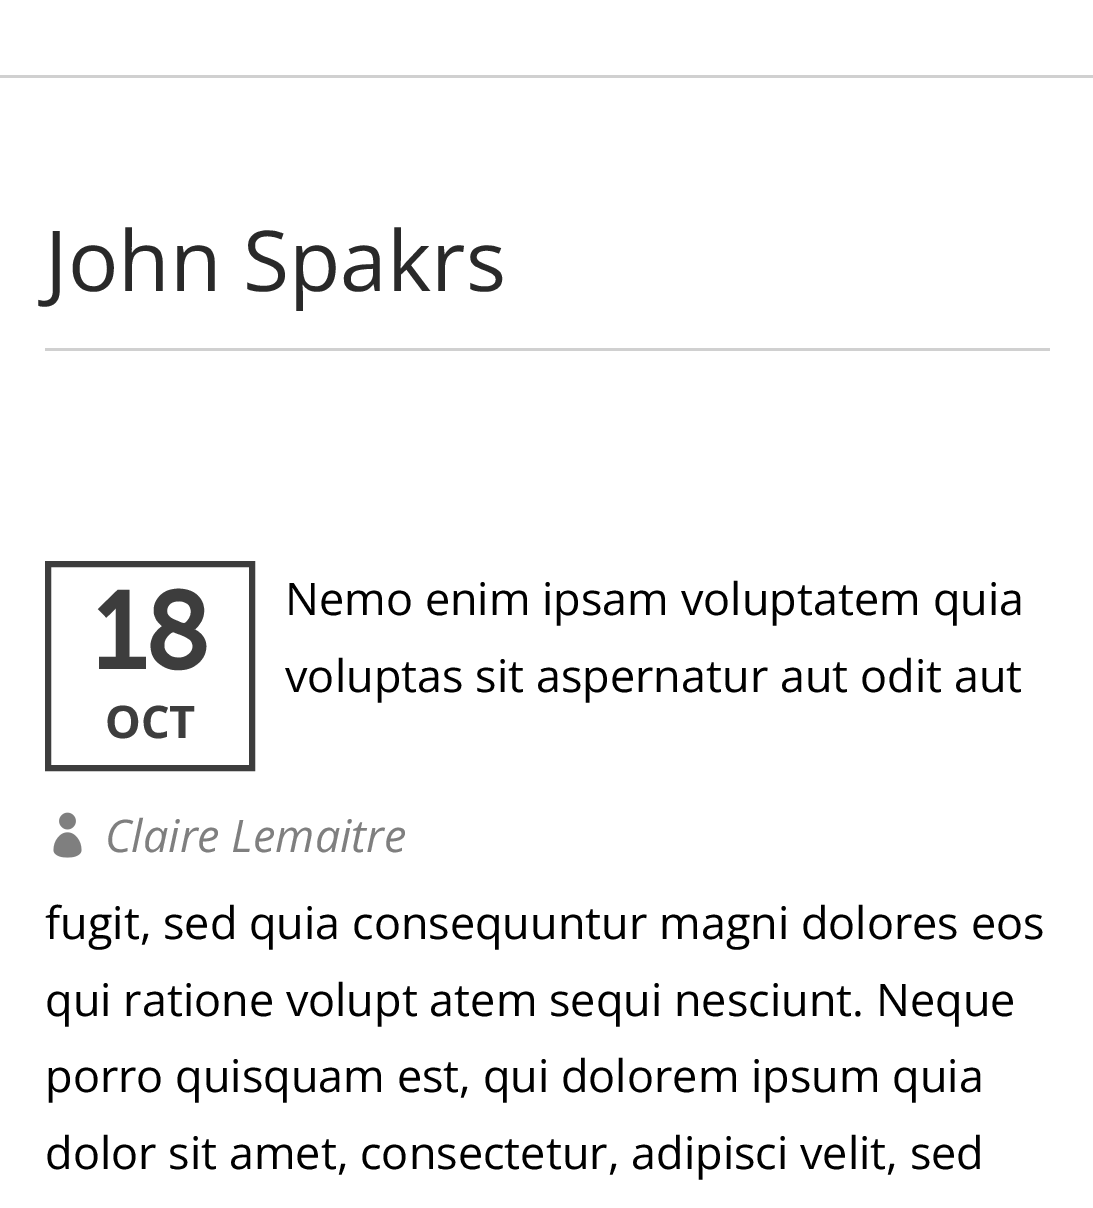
%!PS
<< /PageSize [1093 1208] >> setpagedevice
/rgb { 3 { 255 div 3 1 roll } repeat setrgbcolor } def
/font { [ exch dup neg 0 0 3 -1 roll 0 0 ] selectfont } def
/picture { 5 dict begin { /h /w /y /x /name } { exch def } forall
  gsave x y translate w h scale
  w h 8 [w 0 0 h 0 0] name (r) file false 3 colorimage grestore end } def
0 1208 translate 1 -1 scale
4 setmiterlimit
255 255 255 rgb
0 0 1093 1208 rectfill
208 208 208 rgb
0 75 1093 3 rectfill
45 348 1005 3 rectfill
(img/1.rgb) 53 812 29 46 picture
61 61 61 rgb
6 setlinewidth
48 564 204 204 rectstroke
/OpenSans-Regular 84 font
41 41 41 rgb
45 291 moveto (John Spakrs) show
/OpenSans-Regular 45 font
0 0 0 rgb
[
  [(Nemo enim ipsam voluptatem quia) 285 615]
  [(voluptas sit aspernatur aut odit aut) 285 692]
  [(fugit, sed quia consequuntur magni dolores eos) 45 939]
  [(qui ratione volupt atem sequi nesciunt. Neque) 45 1016]
  [(porro quisquam est, qui dolorem ipsum quia) 45 1092]
  [(dolor sit amet, consectetur, adipisci velit, sed) 45 1169]
] { aload pop moveto show } forall
/OpenSans-Italic 45 font
127 127 127 rgb
105 852 moveto (Claire Lemaitre) show
/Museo-Bold 108 font
61 61 61 rgb
92 669 moveto (18) show
/OpenSans-Bold 45 font
105 738 moveto (OCT) show
showpage
